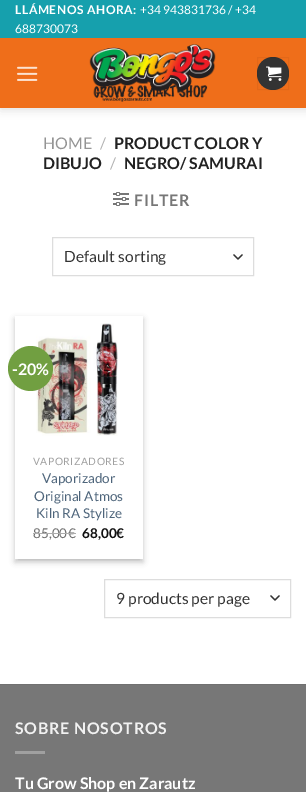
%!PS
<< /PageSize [306 792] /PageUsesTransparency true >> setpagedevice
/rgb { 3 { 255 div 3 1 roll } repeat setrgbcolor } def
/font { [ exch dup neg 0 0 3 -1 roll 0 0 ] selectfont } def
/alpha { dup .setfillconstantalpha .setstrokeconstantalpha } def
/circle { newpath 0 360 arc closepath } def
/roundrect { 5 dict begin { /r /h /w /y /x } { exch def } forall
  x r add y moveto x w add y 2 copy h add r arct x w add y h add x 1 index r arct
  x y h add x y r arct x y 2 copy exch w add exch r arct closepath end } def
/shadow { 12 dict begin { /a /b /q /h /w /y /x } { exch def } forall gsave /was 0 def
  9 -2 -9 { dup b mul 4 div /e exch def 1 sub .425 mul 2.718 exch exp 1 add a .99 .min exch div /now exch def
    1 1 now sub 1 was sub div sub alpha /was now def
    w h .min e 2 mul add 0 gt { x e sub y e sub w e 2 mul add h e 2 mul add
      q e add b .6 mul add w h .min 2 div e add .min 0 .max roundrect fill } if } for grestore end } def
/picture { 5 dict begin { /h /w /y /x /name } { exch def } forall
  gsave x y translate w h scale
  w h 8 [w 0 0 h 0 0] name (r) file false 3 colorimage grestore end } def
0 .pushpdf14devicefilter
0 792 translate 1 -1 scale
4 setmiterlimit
255 255 255 rgb
0 0 306 792 rectfill
0 0 0 rgb
1 1 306 108 0 5 0.15 shadow
22 160 173 rgb
0 0 306 38 rectfill
239 110 26 rgb
0 38 306 70 rectfill
(img/1.rgb) 17 66 21 15 picture
(img/2.rgb) 89 44 127 58 picture
51 51 51 rgb
257 57 32 33 16 roundrect fill
0.05 alpha
0 0 0 rgb
257.5 57.5 31 32 rectstroke
1 alpha
(img/3.rgb) 266 66 16 15 picture
(img/4.rgb) 113 192 16 14 picture
51 51 51 rgb
1.3 setlinewidth
1 setlinecap
1 setlinejoin
234 255 moveto 238 259 lineto 242 255 lineto stroke
221 221 221 rgb
1 setlinewidth
0 setlinecap
0 setlinejoin
52.5 237.5 201 38 rectstroke
gsave
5 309 moveto 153 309 lineto 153 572 lineto 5 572 lineto closepath 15 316 moveto 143 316 lineto 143 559 lineto 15 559 lineto closepath eoclip newpath
0 0 0 rgb
15 319 128 243 0 3 0.23 shadow
grestore
gsave
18 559 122 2 rectclip
0 0 0 rgb
19 323 120 235 0 3 0.16 shadow
grestore
(img/5.rgb) 36 323 82 113 picture
113 159 65 rgb
30.5 368.5 22.5 circle fill
51 51 51 rgb
1.3 setlinewidth
1 setlinecap
1 setlinejoin
271 596 moveto 275 600 lineto 279 596 lineto stroke
221 221 221 rgb
1 setlinewidth
0 setlinecap
0 setlinejoin
104.5 579.5 186 38 rectstroke
[
  [0 685 306 107 119 119 119]
  [0 684 306 1 113 113 113]
  [15 751 30 3 160 160 160]
] { aload pop rgb rectfill } forall
/Lato-Bold 12 font
255 255 255 rgb
15 14 moveto 0.6 0 (LLÁMENOS AHORA:) ashow
/Lato-Regular 12 font
140 14 moveto (+34 943831736 / +34) show
15 33 moveto (688730073) show
/Lato-Regular 16 font
148 148 148 rgb
43 149 moveto (HOME) show
178 178 178 rgb
100 149 moveto (/) show
/Lato-Bold 16 font
34 34 34 rgb
114 149 moveto (PRODUCT COLOR Y) show
43 169 moveto (DIBUJO) show
/Lato-Regular 16 font
178 178 178 rgb
110 169 moveto (/) show
/Lato-Bold 16 font
34 34 34 rgb
124 169 moveto (NEGRO/ SAMURAI) show
119 119 119 rgb
134 206 moveto 0.75 0 (FILTER) ashow
/Lato-Regular 15.5 font
51 51 51 rgb
64 262 moveto (Default sorting) show
/Lato-Bold 16 font
255 255 255 rgb
12 375 moveto (-20%) show
/Lato-Regular 10.25 font
160 160 160 rgb
33 465 moveto 0.5 0 (VAPORIZADORES) ashow
/Lato-Regular 13.5 font
78 101 123 rgb
[
  [(Vaporizador) 42 483]
  [(Original Atmos) 34 501]
  [(Kiln RA Stylize) 36 518]
] { aload pop moveto show } forall
112 112 112 rgb
33 538 moveto (85,00) show
173 173 173 rgb
33 533 35 1 rectfill
112 112 112 rgb
68 538 moveto (€) show
173 173 173 rgb
68 533 8 1 rectfill
/Lato-Bold 13.5 font
17 17 17 rgb
82 538 moveto (68,00€) show
/Lato-Regular 15.5 font
51 51 51 rgb
116 604 moveto (9 products per page) show
/Lato-Bold 16 font
241 241 241 rgb
15 734 moveto 0.75 0 (SOBRE NOSOTROS) ashow
255 255 255 rgb
15 789 moveto (Tu Grow Shop en Zarautz) show
.poppdf14devicefilter showpage
